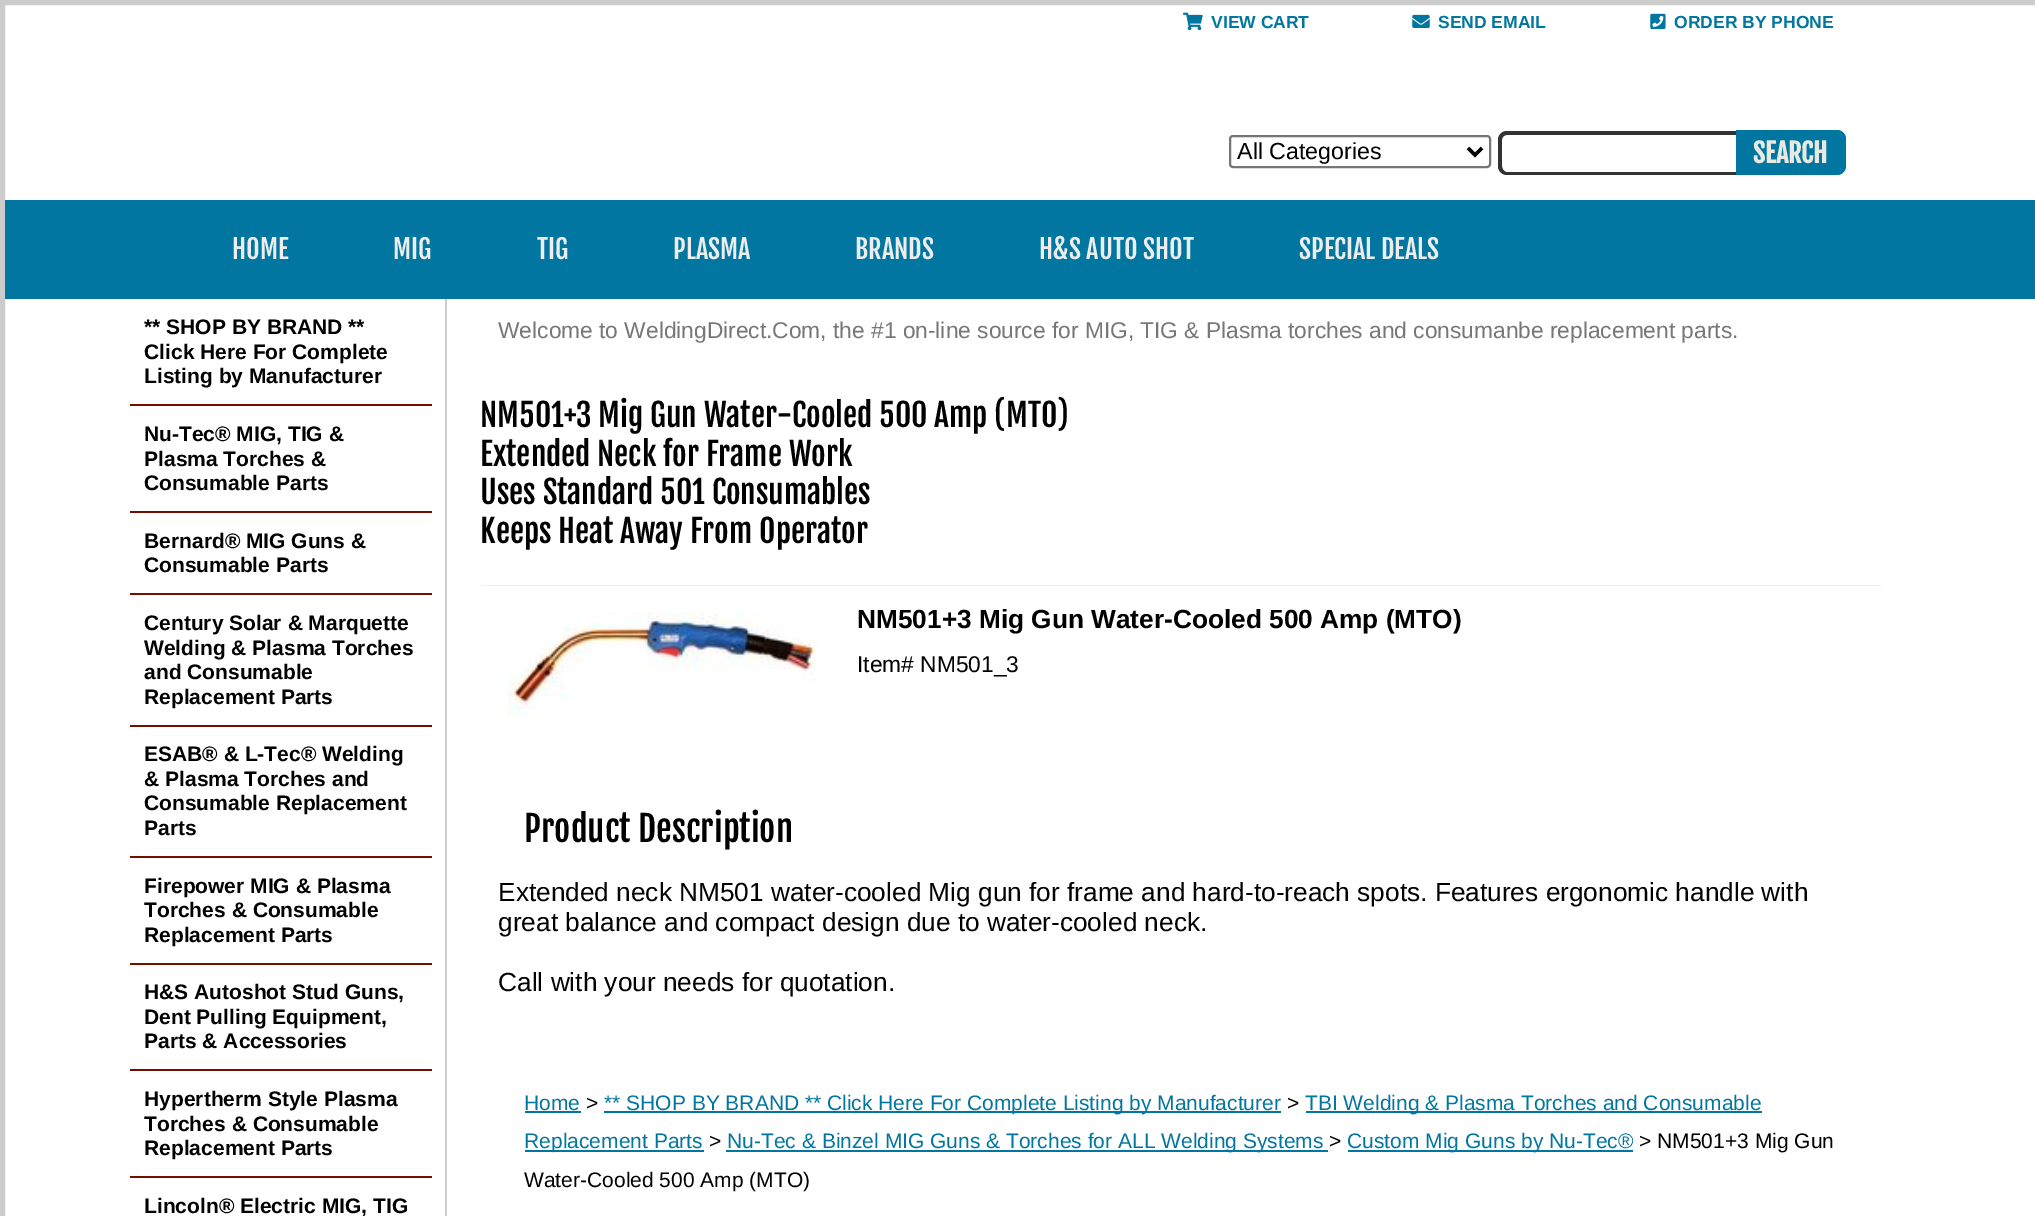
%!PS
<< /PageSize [2035 1216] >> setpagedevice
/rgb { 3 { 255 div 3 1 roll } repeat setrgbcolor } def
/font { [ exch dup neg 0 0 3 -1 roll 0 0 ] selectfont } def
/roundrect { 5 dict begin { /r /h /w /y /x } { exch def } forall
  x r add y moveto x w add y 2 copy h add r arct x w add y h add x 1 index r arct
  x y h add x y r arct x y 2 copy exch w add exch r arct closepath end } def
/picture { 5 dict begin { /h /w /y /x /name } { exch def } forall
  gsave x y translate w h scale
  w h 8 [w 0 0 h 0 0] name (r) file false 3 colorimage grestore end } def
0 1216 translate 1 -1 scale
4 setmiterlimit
255 255 255 rgb
0 0 2035 1216 rectfill
204 204 204 rgb
5 setlinewidth
2.5 2.5 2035 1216 rectstroke
(img/1.rgb) 1183 12 20 19 picture
(img/2.rgb) 1412 14 18 14 picture
(img/3.rgb) 1650 13 16 17 picture
118 118 118 rgb
2 setlinewidth
1230 136 260 31 3 roundrect stroke
0 0 0 rgb
3.5 setlinewidth
1468 148 moveto 1475 155 lineto 1482 148 lineto stroke
51 51 51 rgb
1507 131 moveto 1736 131 lineto 1736 175 lineto 1507 175 lineto 1502 175 1498 171 1498 166 curveto 1498 140 lineto 1498 135 1502 131 1507 131 curveto closepath 1507 135 moveto 1736 135 lineto 1736 172 lineto 1507 172 lineto 1504 172 1502 169 1502 166 curveto 1502 140 lineto 1502 137 1504 135 1507 135 curveto closepath eofill
0 118 160 rgb
1736 130 moveto 1837 130 lineto 1842 130 1846 134 1846 139 curveto 1846 166 lineto 1846 171 1842 175 1837 175 curveto 1736 175 lineto closepath fill
[
  [5 200 2030 99 0 118 160]
  [445 299 2 917 204 204 204]
  [130 404 302 2 117 14 0]
  [130 511 302 2 117 14 0]
  [130 593 302 2 117 14 0]
  [130 725 302 2 117 14 0]
  [130 856 302 2 117 14 0]
  [130 963 302 2 117 14 0]
  [130 1069 302 2 117 14 0]
  [130 1176 302 2 117 14 0]
  [481 585 1400 1 237 237 237]
] { aload pop rgb rectfill } forall
(img/4.rgb) 507 612 311 106 picture
[
  [525 1111 56 2 0 118 160]
  [604 1111 677 2 0 118 160]
  [1306 1111 456 2 0 118 160]
  [525 1150 179 2 0 118 160]
  [726 1150 602 2 0 118 160]
  [1348 1150 285 2 0 118 160]
] { aload pop rgb rectfill } forall
/LiberationSans-Bold 17.5 font
[
  [(VIEW CART) 1211 28]
  [(SEND EMAIL) 1438 28]
  [(ORDER BY PHONE) 1674 28]
] { aload pop moveto show } forall
/LiberationSans-Regular 23.25 font
0 0 0 rgb
1237 159 moveto (All Categories) show
/FjallaOne-Bold 26.25 font
233 233 228 rgb
1753 163 moveto (SEARCH) show
/FjallaOne-Regular 26.25 font
237 237 237 rgb
[
  [(HOME) 232 259]
  [(MIG) 393 259]
  [(TIG) 537 259]
  [(PLASMA) 673 259]
  [(BRANDS) 855 259]
  [(H&S AUTO SHOT) 1039 259]
  [(SPECIAL DEALS) 1299 259]
] { aload pop moveto show } forall
/LiberationSans-Bold 21 font
0 0 0 rgb
[
  [(** SHOP BY BRAND **) 144 334]
  [(Click Here For Complete) 144 359]
  [(Listing by Manufacturer) 144 383]
  [(Nu-Tec® MIG, TIG &) 144 441]
  [(Plasma Torches &) 144 466]
  [(Consumable Parts) 144 490]
  [(Bernard® MIG Guns &) 144 548]
  [(Consumable Parts) 144 572]
  [(Century Solar & Marquette) 144 630]
  [(Welding & Plasma Torches) 144 655]
  [(and Consumable) 144 679]
  [(Replacement Parts) 144 704]
  [(ESAB® & L-Tec® Welding) 144 761]
  [(& Plasma Torches and) 144 786]
  [(Consumable Replacement) 144 810]
  [(Parts) 144 835]
  [(Firepower MIG & Plasma) 144 893]
  [(Torches & Consumable) 144 917]
  [(Replacement Parts) 144 942]
  [(H&S Autoshot Stud Guns,) 144 999]
  [(Dent Pulling Equipment,) 144 1024]
  [(Parts & Accessories) 144 1048]
  [(Hypertherm Style Plasma) 144 1106]
  [(Torches & Consumable) 144 1131]
  [(Replacement Parts) 144 1155]
  [(Lincoln® Electric MIG, TIG) 144 1213]
] { aload pop moveto show } forall
/LiberationSans-Regular 22.75 font
119 119 119 rgb
498 338 moveto (Welcome to WeldingDirect.Com, the #1 on-line source for MIG, TIG & Plasma torches and consumanbe replacement parts.) show
/FjallaOne-Regular 31.5 font
0 0 0 rgb
[
  [(NM501+3 Mig Gun Water-Cooled 500 Amp \(MTO\)) 480 427]
  [(Extended Neck for Frame Work) 480 466]
  [(Uses Standard 501 Consumables) 480 504]
  [(Keeps Heat Away From Operator) 480 543]
] { aload pop moveto show } forall
/LiberationSans-Bold 26.25 font
857 628 moveto (NM501+3 Mig Gun Water-Cooled 500 Amp \(MTO\)) show
/LiberationSans-Regular 22.75 font
857 672 moveto (Item# NM501_3) show
/FjallaOne-Regular 35 font
524 842 moveto (Product Description) show
/LiberationSans-Regular 26.25 font
[
  [(Extended neck NM501 water-cooled Mig gun for frame and hard-to-reach spots. Features ergonomic handle with) 498 901]
  [(great balance and compact design due to water-cooled neck.) 498 931]
  [(Call with your needs for quotation.) 498 991]
] { aload pop moveto show } forall
/LiberationSans-Regular 21 font
0 118 160 rgb
524 1110 moveto (Home) show
0 0 0 rgb
586 1110 moveto (>) show
0 118 160 rgb
604 1110 moveto (** SHOP BY BRAND ** Click Here For Complete Listing by Manufacturer) show
0 0 0 rgb
1287 1110 moveto (>) show
0 118 160 rgb
1305 1110 moveto (TBI Welding & Plasma Torches and Consumable) show
524 1148 moveto (Replacement Parts) show
0 0 0 rgb
709 1148 moveto (>) show
0 118 160 rgb
727 1148 moveto (Nu-Tec & Binzel MIG Guns & Torches for ALL Welding Systems) show
0 0 0 rgb
1329 1148 moveto (>) show
0 118 160 rgb
1347 1148 moveto (Custom Mig Guns by Nu-Tec®) show
0 0 0 rgb
1639 1148 moveto (> NM501+3 Mig Gun) show
524 1187 moveto (Water-Cooled 500 Amp \(MTO\)) show
showpage
